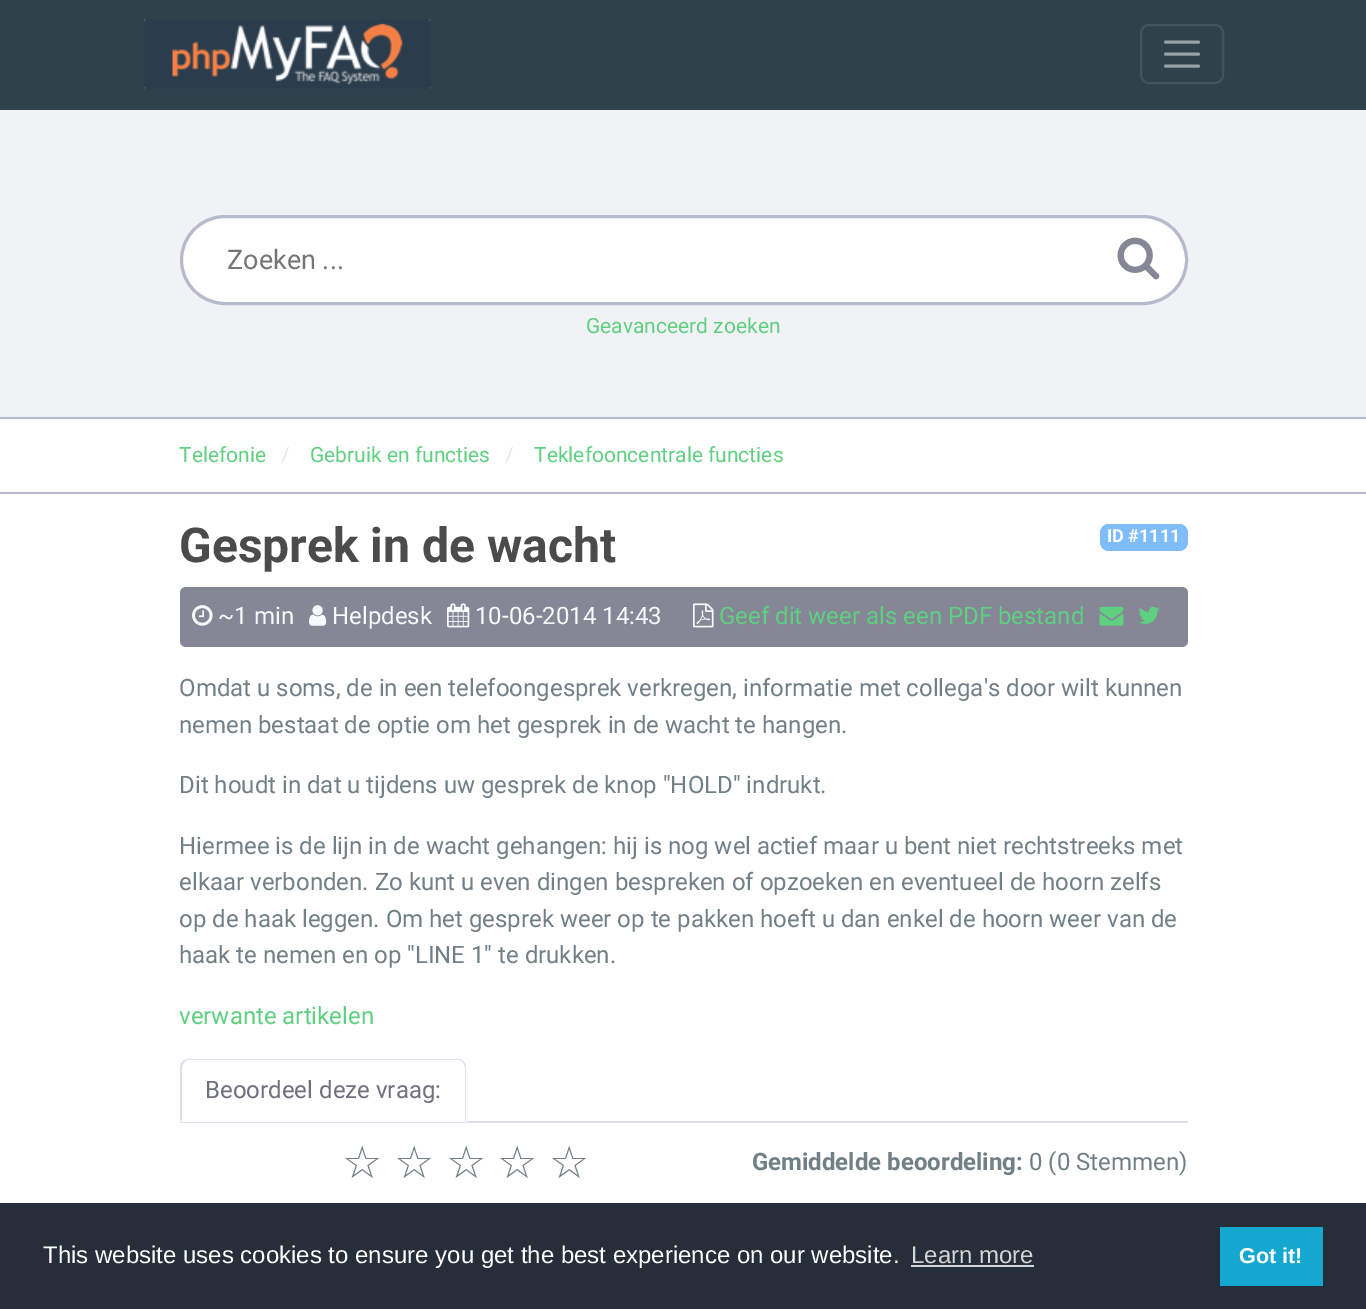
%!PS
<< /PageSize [1366 1309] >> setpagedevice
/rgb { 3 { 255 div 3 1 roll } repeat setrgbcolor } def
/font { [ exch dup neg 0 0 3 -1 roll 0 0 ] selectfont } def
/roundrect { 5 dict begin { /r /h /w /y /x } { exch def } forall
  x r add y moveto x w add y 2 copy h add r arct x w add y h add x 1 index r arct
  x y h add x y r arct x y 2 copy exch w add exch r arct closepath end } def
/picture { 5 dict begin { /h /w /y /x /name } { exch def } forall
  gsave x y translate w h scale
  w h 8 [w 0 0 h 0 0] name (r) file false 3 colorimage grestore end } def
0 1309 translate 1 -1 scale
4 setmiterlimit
255 255 255 rgb
0 0 1366 1309 rectfill
47 65 74 rgb
0 0 1366 110 rectfill
(img/1.rgb) 144 19 287 70 picture
68 84 92 rgb
2 setlinewidth
1141 25 82 58 8 roundrect stroke
151 160 165 rgb
3 setlinewidth
1 setlinecap
1165.5 42 moveto 1198.5 42 lineto 1165.5 54 moveto 1198.5 54 lineto 1165.5 66 moveto 1198.5 66 lineto stroke
241 242 245 rgb
0 110 1366 307 rectfill
183 185 204 rgb
0 417 1366 2 rectfill
255 255 255 rgb
181.5 216.5 1005 87 43.5 roundrect gsave fill grestore
183 185 204 rgb
0 setlinecap
stroke
(img/2.rgb) 1117 237 43 43 picture
0 492 1366 2 rectfill
126 188 250 rgb
1100 524 88 27 9 roundrect fill
133 135 150 rgb
180 587 1008 60 6 roundrect fill
(img/3.rgb) 192 605 21 21 picture
(img/4.rgb) 309 605 18 21 picture
(img/5.rgb) 447 603 23 25 picture
(img/6.rgb) 693 603 21 25 picture
(img/7.rgb) 1099 606 25 20 picture
(img/8.rgb) 1138 606 22 18 picture
221 223 235 rgb
180 1121 1008 2 rectfill
255 255 255 rgb
189 1059 moveto 458 1059 lineto 463 1059 467 1063 467 1068 curveto 467 1122 lineto 180 1122 lineto 180 1068 lineto 180 1063 184 1059 189 1059 curveto closepath fill
221 223 235 rgb
188 1059 moveto 186 1059 184 1060 182 1062 curveto 184 1063 lineto 185 1061 186 1060 188 1060 curveto 458 1060 lineto 460 1060 462 1061 463 1062 curveto 464 1062 lineto 463 1060 461 1059 458 1059 curveto closepath fill
464 1062 moveto 465 1063 466 1065 466 1067 curveto 466 1122 lineto 464 1120 lineto 465 1120 lineto 465 1067 lineto 465 1066 464 1064 463 1062 curveto closepath fill
255 255 255 rgb
466 1122 moveto 464 1120 lineto 182 1120 lineto 180 1122 lineto closepath fill
221 223 235 rgb
180 1122 moveto 182 1120 lineto 182 1067 lineto 182 1066 183 1064 184 1063 curveto 182 1062 lineto 181 1063 180 1065 180 1067 curveto closepath fill
[
  [0 1203 1366 106 37 46 57]
  [911 1265 123 2 211 213 215]
  [1220 1227 103 59 20 167 208]
] { aload pop rgb rectfill } forall
/Roboto-Regular 27 font
117 117 117 rgb
227 269 moveto (Zoeken ...) show
/Roboto-Regular 21 font
95 207 128 rgb
586 333 moveto (Geavanceerd zoeken) show
179 462 moveto (Telefonie) show
225 232 238 rgb
281 462 moveto (/) show
95 207 128 rgb
310 462 moveto (Gebruik en functies) show
225 232 238 rgb
505 462 moveto (/) show
95 207 128 rgb
534 462 moveto (Teklefooncentrale functies) show
/Roboto-Bold 48 font
75 75 76 rgb
179 562 moveto (Gesprek in de wacht) show
/Roboto-Bold 18 font
255 255 255 rgb
1107 542 moveto (ID #1111) show
/Roboto-Regular 24 font
248 249 252 rgb
[
  [(~1 min) 218 624]
  [(Helpdesk) 332 624]
  [(10-06-2014 14:43) 475 624]
] { aload pop moveto show } forall
95 207 128 rgb
719 624 moveto (Geef dit weer als een PDF bestand) show
113 127 134 rgb
[
  [(Omdat u soms, de in een telefoongesprek verkregen, informatie met collega's door wilt kunnen) 179 696]
  [(nemen bestaat de optie om het gesprek in de wacht te hangen.) 179 733]
  [(Dit houdt in dat u tijdens uw gesprek de knop "HOLD" indrukt.) 179 793]
  [(Hiermee is de lijn in de wacht gehangen: hij is nog wel actief maar u bent niet rechtstreeks met) 179 854]
  [(elkaar verbonden. Zo kunt u even dingen bespreken of opzoeken en eventueel de hoorn zelfs) 179 890]
  [(op de haak leggen. Om het gesprek weer op te pakken hoeft u dan enkel de hoorn weer van de) 179 927]
  [(haak te nemen en op "LINE 1" te drukken.) 179 963]
] { aload pop moveto show } forall
95 207 128 rgb
179 1024 moveto (verwante artikelen) show
110 112 126 rgb
205 1098 moveto (Beoordeel deze vraag:) show
/DejaVuSans-Regular 45 font
113 127 134 rgb
[
  [(☆) 342 1178]
  [(☆) 394 1178]
  [(☆) 446 1178]
  [(☆) 497 1178]
  [(☆) 549 1178]
] { aload pop moveto show } forall
/Roboto-Bold 24 font
752 1170 moveto (Gemiddelde beoordeling:) show
/Roboto-Regular 24 font
1029 1170 moveto (0 \(0 Stemmen\)) show
/LiberationSans-Regular 24 font
255 255 255 rgb
43 1263 moveto (This website uses cookies to ensure you get the best experience on our website.) show
211 213 215 rgb
911 1263 moveto (Learn more) show
/LiberationSans-Bold 21.5 font
255 255 255 rgb
1239 1263 moveto (Got it!) show
showpage
